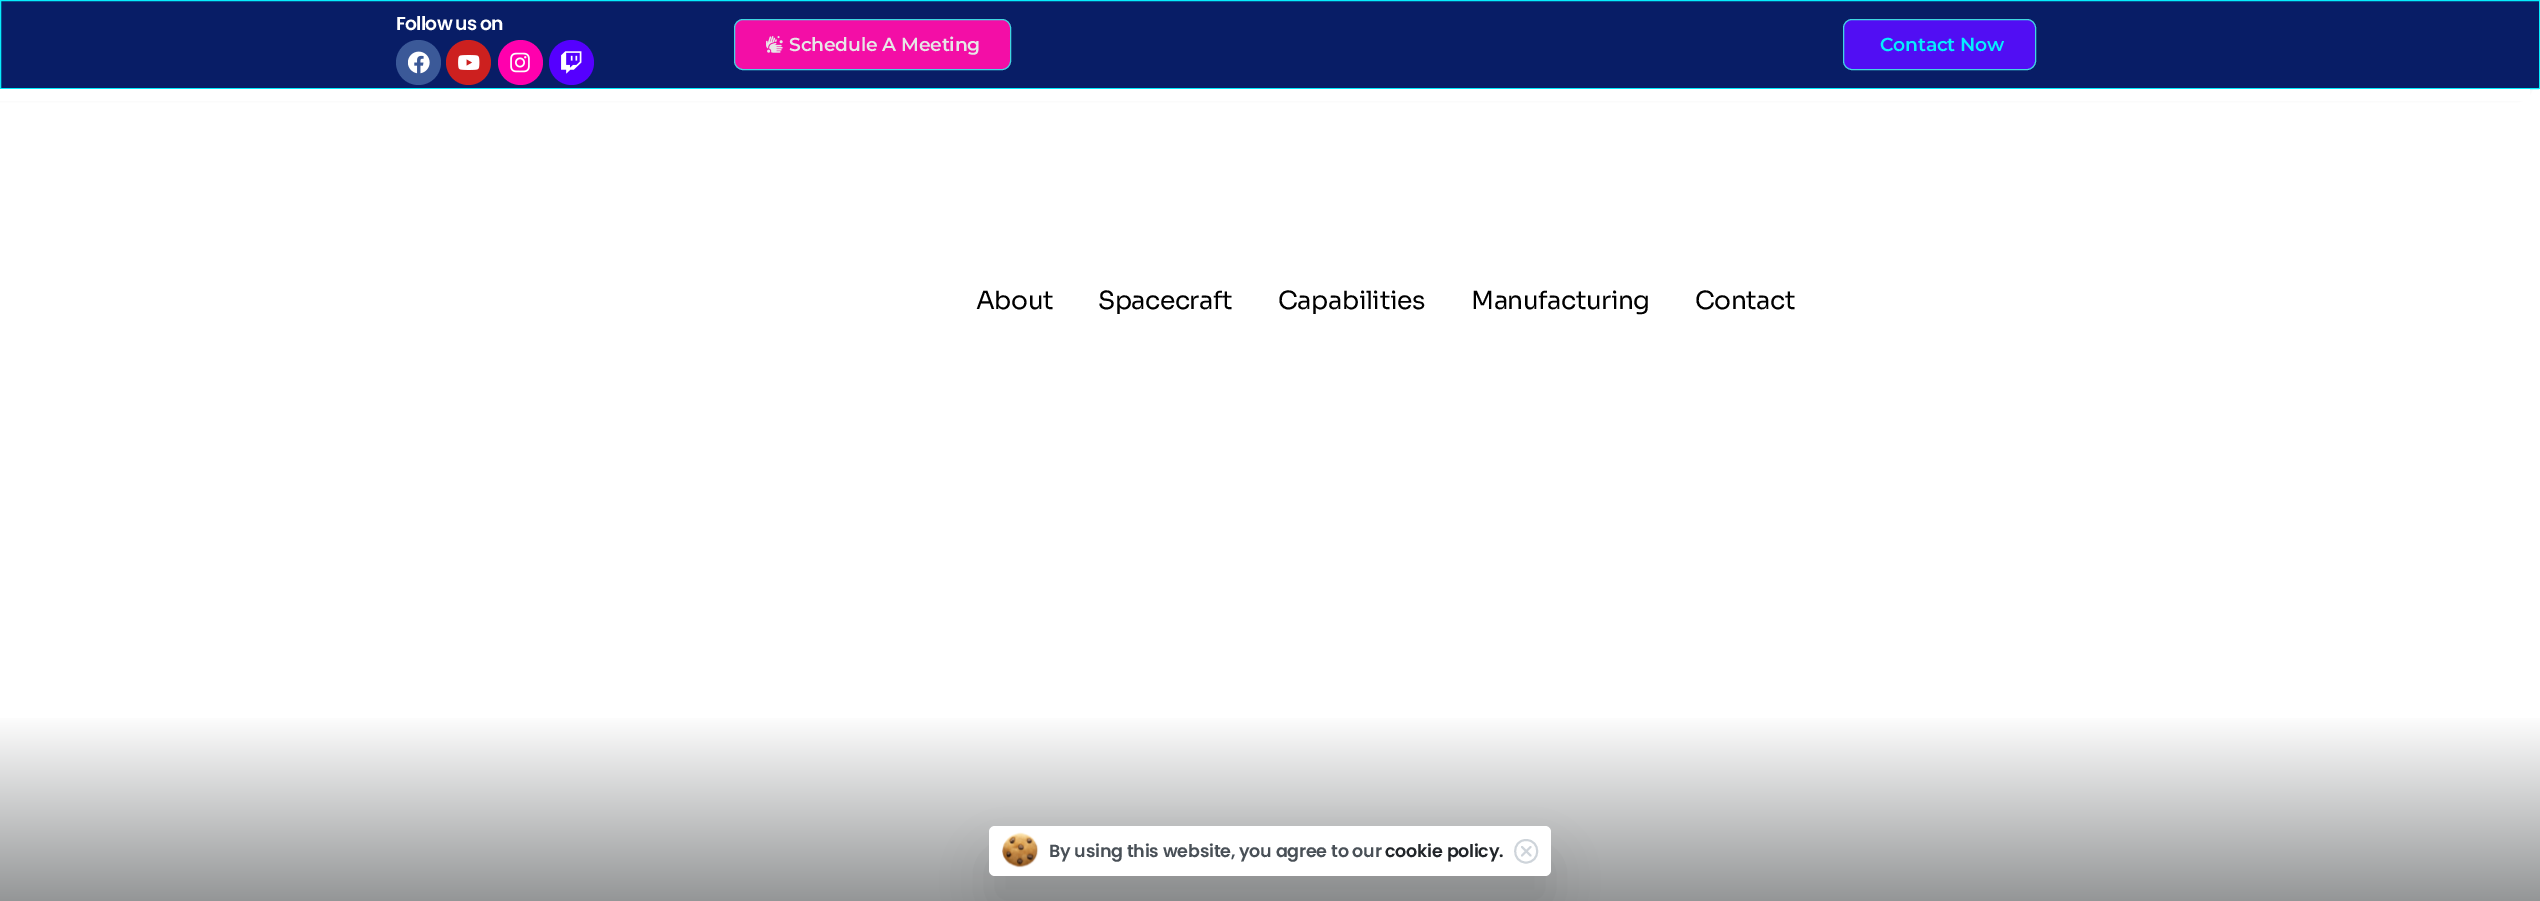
%!PS
<< /PageSize [2540 901] /PageUsesTransparency true >> setpagedevice
/rgb { 3 { 255 div 3 1 roll } repeat setrgbcolor } def
/font { [ exch dup neg 0 0 3 -1 roll 0 0 ] selectfont } def
/alpha { dup .setfillconstantalpha .setstrokeconstantalpha } def
/circle { newpath 0 360 arc closepath } def
/roundrect { 5 dict begin { /r /h /w /y /x } { exch def } forall
  x r add y moveto x w add y 2 copy h add r arct x w add y h add x 1 index r arct
  x y h add x y r arct x y 2 copy exch w add exch r arct closepath end } def
/shadow { 12 dict begin { /a /b /q /h /w /y /x } { exch def } forall gsave /was 0 def
  9 -2 -9 { dup b mul 4 div /e exch def 1 sub .425 mul 2.718 exch exp 1 add a .99 .min exch div /now exch def
    1 1 now sub 1 was sub div sub alpha /was now def
    w h .min e 2 mul add 0 gt { x e sub y e sub w e 2 mul add h e 2 mul add
      q e add b .6 mul add w h .min 2 div e add .min 0 .max roundrect fill } if } for grestore end } def
/picture { 5 dict begin { /h /w /y /x /name } { exch def } forall
  gsave x y translate w h scale
  w h 8 [w 0 0 h 0 0] name (r) file false 3 colorimage grestore end } def
0 .pushpdf14devicefilter
0 901 translate 1 -1 scale
4 setmiterlimit
255 255 255 rgb
0 0 2540 901 rectfill
0 0 0 rgb
-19 0 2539 89 1 6 0.5 shadow
8 29 102 rgb
0.5 0.5 2539 88 0.5 roundrect gsave fill grestore
6 238 253 rgb
stroke
59 89 152 rgb
418.5 62.5 22.5 circle fill
(img/1.rgb) 408 51 22 23 picture
205 32 31 rgb
468.5 62.5 22.5 circle fill
(img/2.rgb) 458 55 22 15 picture
255 0 173 rgb
520.5 62.5 22.5 circle fill
(img/3.rgb) 510 52 20 21 picture
85 0 255 rgb
571.5 62.5 22.5 circle fill
(img/4.rgb) 561 51 21 23 picture
243 14 166 rgb
734.5 19.5 276 50 8.5 roundrect gsave fill grestore
64 215 225 rgb
stroke
(img/5.rgb) 766 36 17 17 picture
81 14 243 rgb
1843.5 19.5 192 50 8.5 roundrect gsave fill grestore
64 215 225 rgb
stroke
255 255 255 rgb
0 89 2530 12 rectfill
gsave 0 718 moveto 2540 718 lineto 2540 901 lineto 0 901 lineto closepath clip newpath
<< /ShadingType 2 /ColorSpace /DeviceRGB /Coords [1270 714 1270 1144] /Extend [true true] /Function << /FunctionType 2 /Domain [0 1] /C0 [1 1 1] /C1 [0.031 0.055 0.063] /N 1 >> >> shfill grestore
0 0 0 rgb
989 856 562 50 6 22 0.1 shadow
255 255 255 rgb
989 826 562 50 6 roundrect fill
(img/6.rgb) 1002 832 37 36 picture
206 212 218 rgb
1.9 setlinewidth
1 setlinecap
1 setlinejoin
1526 862.5 moveto 1541 862.5 1541 840 1526 840 curveto 1511.5 840 1511.5 862.5 1526 862.5 curveto closepath 1530.5 847 moveto 1522 855.5 lineto 1522 847 moveto 1530.5 855.5 lineto stroke
/Poppins-SemiBold 18.75 font
255 255 255 rgb
396 30 moveto -0.75 0 (Follow us on) ashow
/Montserrat-SemiBold 18.75 font
231 231 231 rgb
789 51 moveto -0.2 0 (Schedule A Meeting) ashow
6 238 253 rgb
1880 51 moveto -0.2 0 (Contact Now) ashow
/Sora-Regular 25 font
0 0 0 rgb
976 309 moveto -0.5 0 (About) ashow
1098 309 moveto -0.5 0 (Spacecraft) ashow
1278 309 moveto -0.5 0 (Capabilities) ashow
1471 309 moveto -0.5 0 (Manufacturing) ashow
1695 309 moveto -0.5 0 (Contact) ashow
/Poppins-SemiBold 17.5 font
73 80 87 rgb
1049 857 moveto -0.2 0 (By using this website, you agree to our) ashow
33 37 41 rgb
1385 857 moveto -0.2 0 (cookie policy.) ashow
.poppdf14devicefilter showpage
